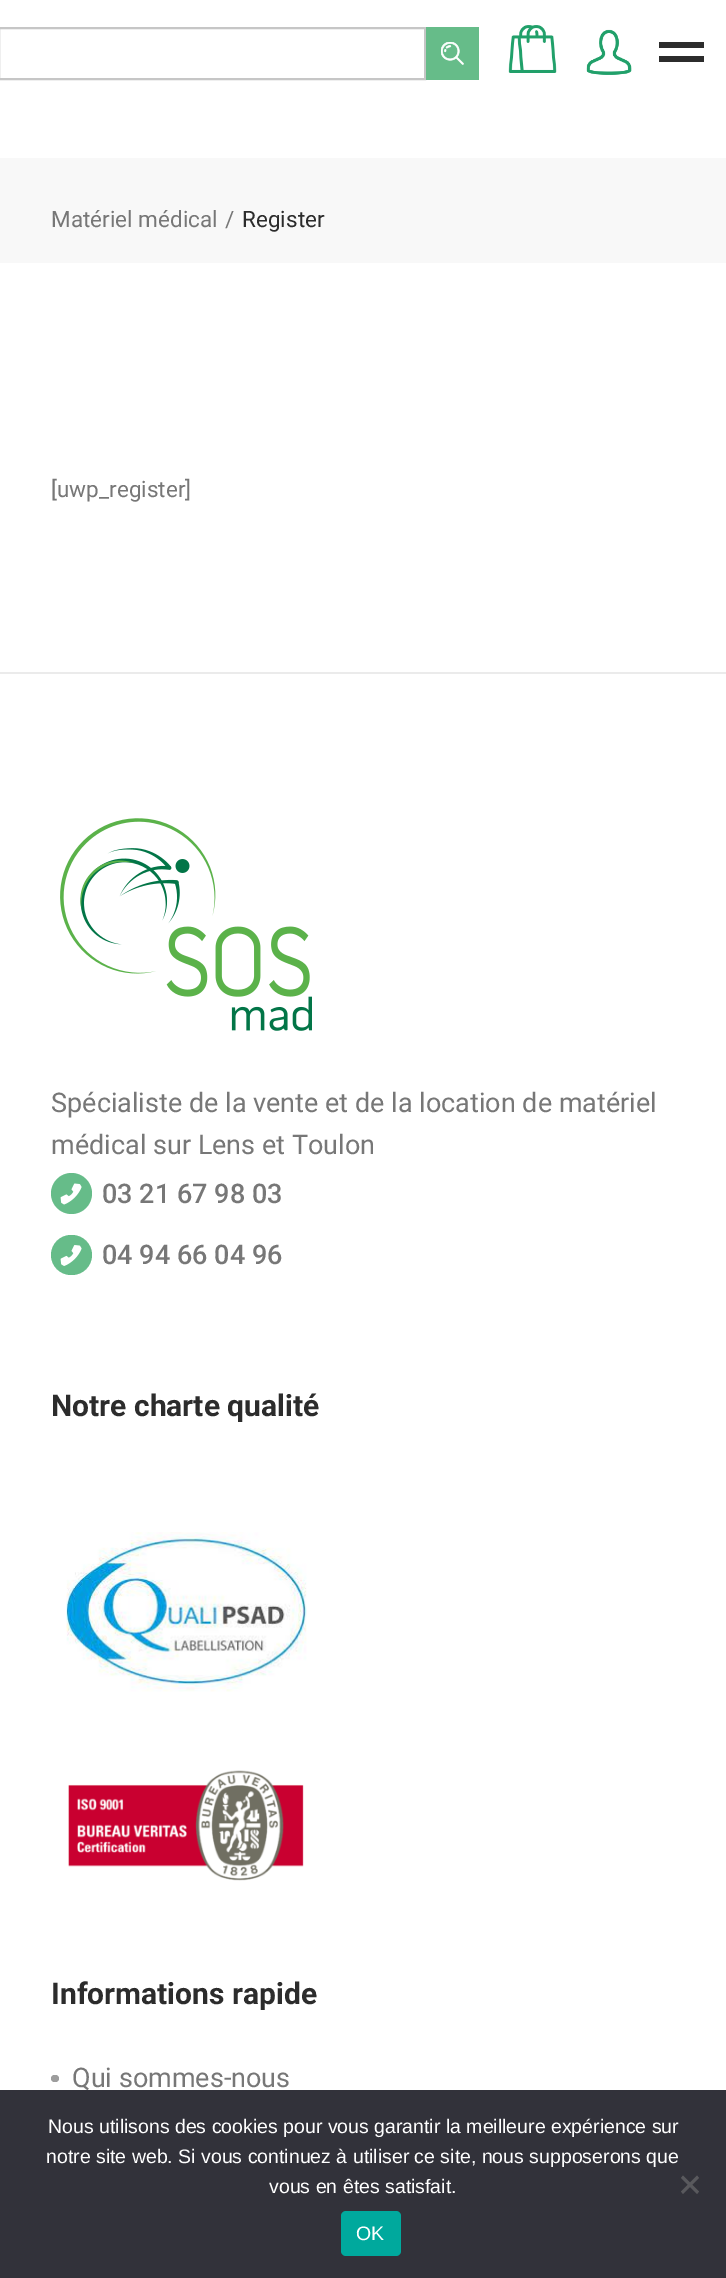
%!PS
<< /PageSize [726 2278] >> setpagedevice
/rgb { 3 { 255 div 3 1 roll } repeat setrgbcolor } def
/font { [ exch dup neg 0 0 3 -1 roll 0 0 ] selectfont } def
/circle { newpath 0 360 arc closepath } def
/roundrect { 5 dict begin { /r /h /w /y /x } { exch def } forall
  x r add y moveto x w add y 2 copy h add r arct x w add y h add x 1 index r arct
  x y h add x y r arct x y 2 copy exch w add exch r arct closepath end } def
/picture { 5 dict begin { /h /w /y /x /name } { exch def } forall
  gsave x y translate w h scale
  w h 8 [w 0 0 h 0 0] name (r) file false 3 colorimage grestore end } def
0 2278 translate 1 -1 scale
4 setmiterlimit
255 255 255 rgb
0 0 726 2278 rectfill
198 198 198 rgb
2 setlinewidth
-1 28 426 51 rectstroke
102 188 137 rgb
426 27 53 53 rectfill
(img/1.rgb) 441 42 23 23 picture
(img/2.rgb) 508 25 49 48 picture
(img/3.rgb) 586 29 46 46 picture
[
  [659 42 45 6 44 44 44]
  [659 56 45 6 44 44 44]
  [0 158 726 105 248 248 248]
  [0 672 726 2 235 235 235]
] { aload pop rgb rectfill } forall
(img/4.rgb) 60 818 252 213 picture
102 188 137 rgb
71.5 1193.5 20.5 circle fill
(img/5.rgb) 60 1183 22 22 picture
51 1235 41 40 20 roundrect fill
(img/6.rgb) 60 1245 22 21 picture
(img/7.rgb) 66 1532 241 160 picture
(img/8.rgb) 68 1770 236 111 picture
157 157 157 rgb
51 2075 8 7 3.5 roundrect fill
/Roboto-Regular 22.5 font
119 119 119 rgb
51 227 moveto (Matériel médical) show
225 227 moveto (/) show
44 44 44 rgb
242 227 moveto (Register) show
119 119 119 rgb
51 497 moveto ([uwp_register]) show
/Roboto-Regular 27 font
51 1112 moveto (Spécialiste de la vente et de la location de matériel) show
51 1154 moveto (médical sur Lens et Toulon) show
/Roboto-Medium 27 font
102 1203 moveto (03 21 67 98 03) show
102 1264 moveto (04 94 66 04 96) show
/Roboto-Bold 30 font
44 44 44 rgb
51 1416 moveto (Notre charte qualité) show
51 2004 moveto (Informations rapide) show
/Roboto-Regular 27 font
119 119 119 rgb
72 2087 moveto (Qui sommes-nous) show
50 50 58 rgb
0 2090 726 188 rectfill
/LiberationSans-Regular 19.5 font
255 255 255 rgb
[
  [(Nous utilisons des cookies pour vous garantir la meilleure expérience sur) 48 2133]
  [(notre site web. Si vous continuez à utiliser ce site, nous supposerons que) 46 2163]
  [(vous en êtes satisfait.) 269 2193]
] { aload pop moveto show } forall
89 89 93 rgb
697 2175.5 moveto 699 2178 lineto 683 2194 lineto 681 2191.5 lineto closepath fill
681 2178 moveto 683 2175.5 lineto 699 2191.5 lineto 697 2194 lineto closepath fill
0 169 157 rgb
341 2211 60 45 5 roundrect fill
255 255 255 rgb
356 2240 moveto (OK) show
showpage
